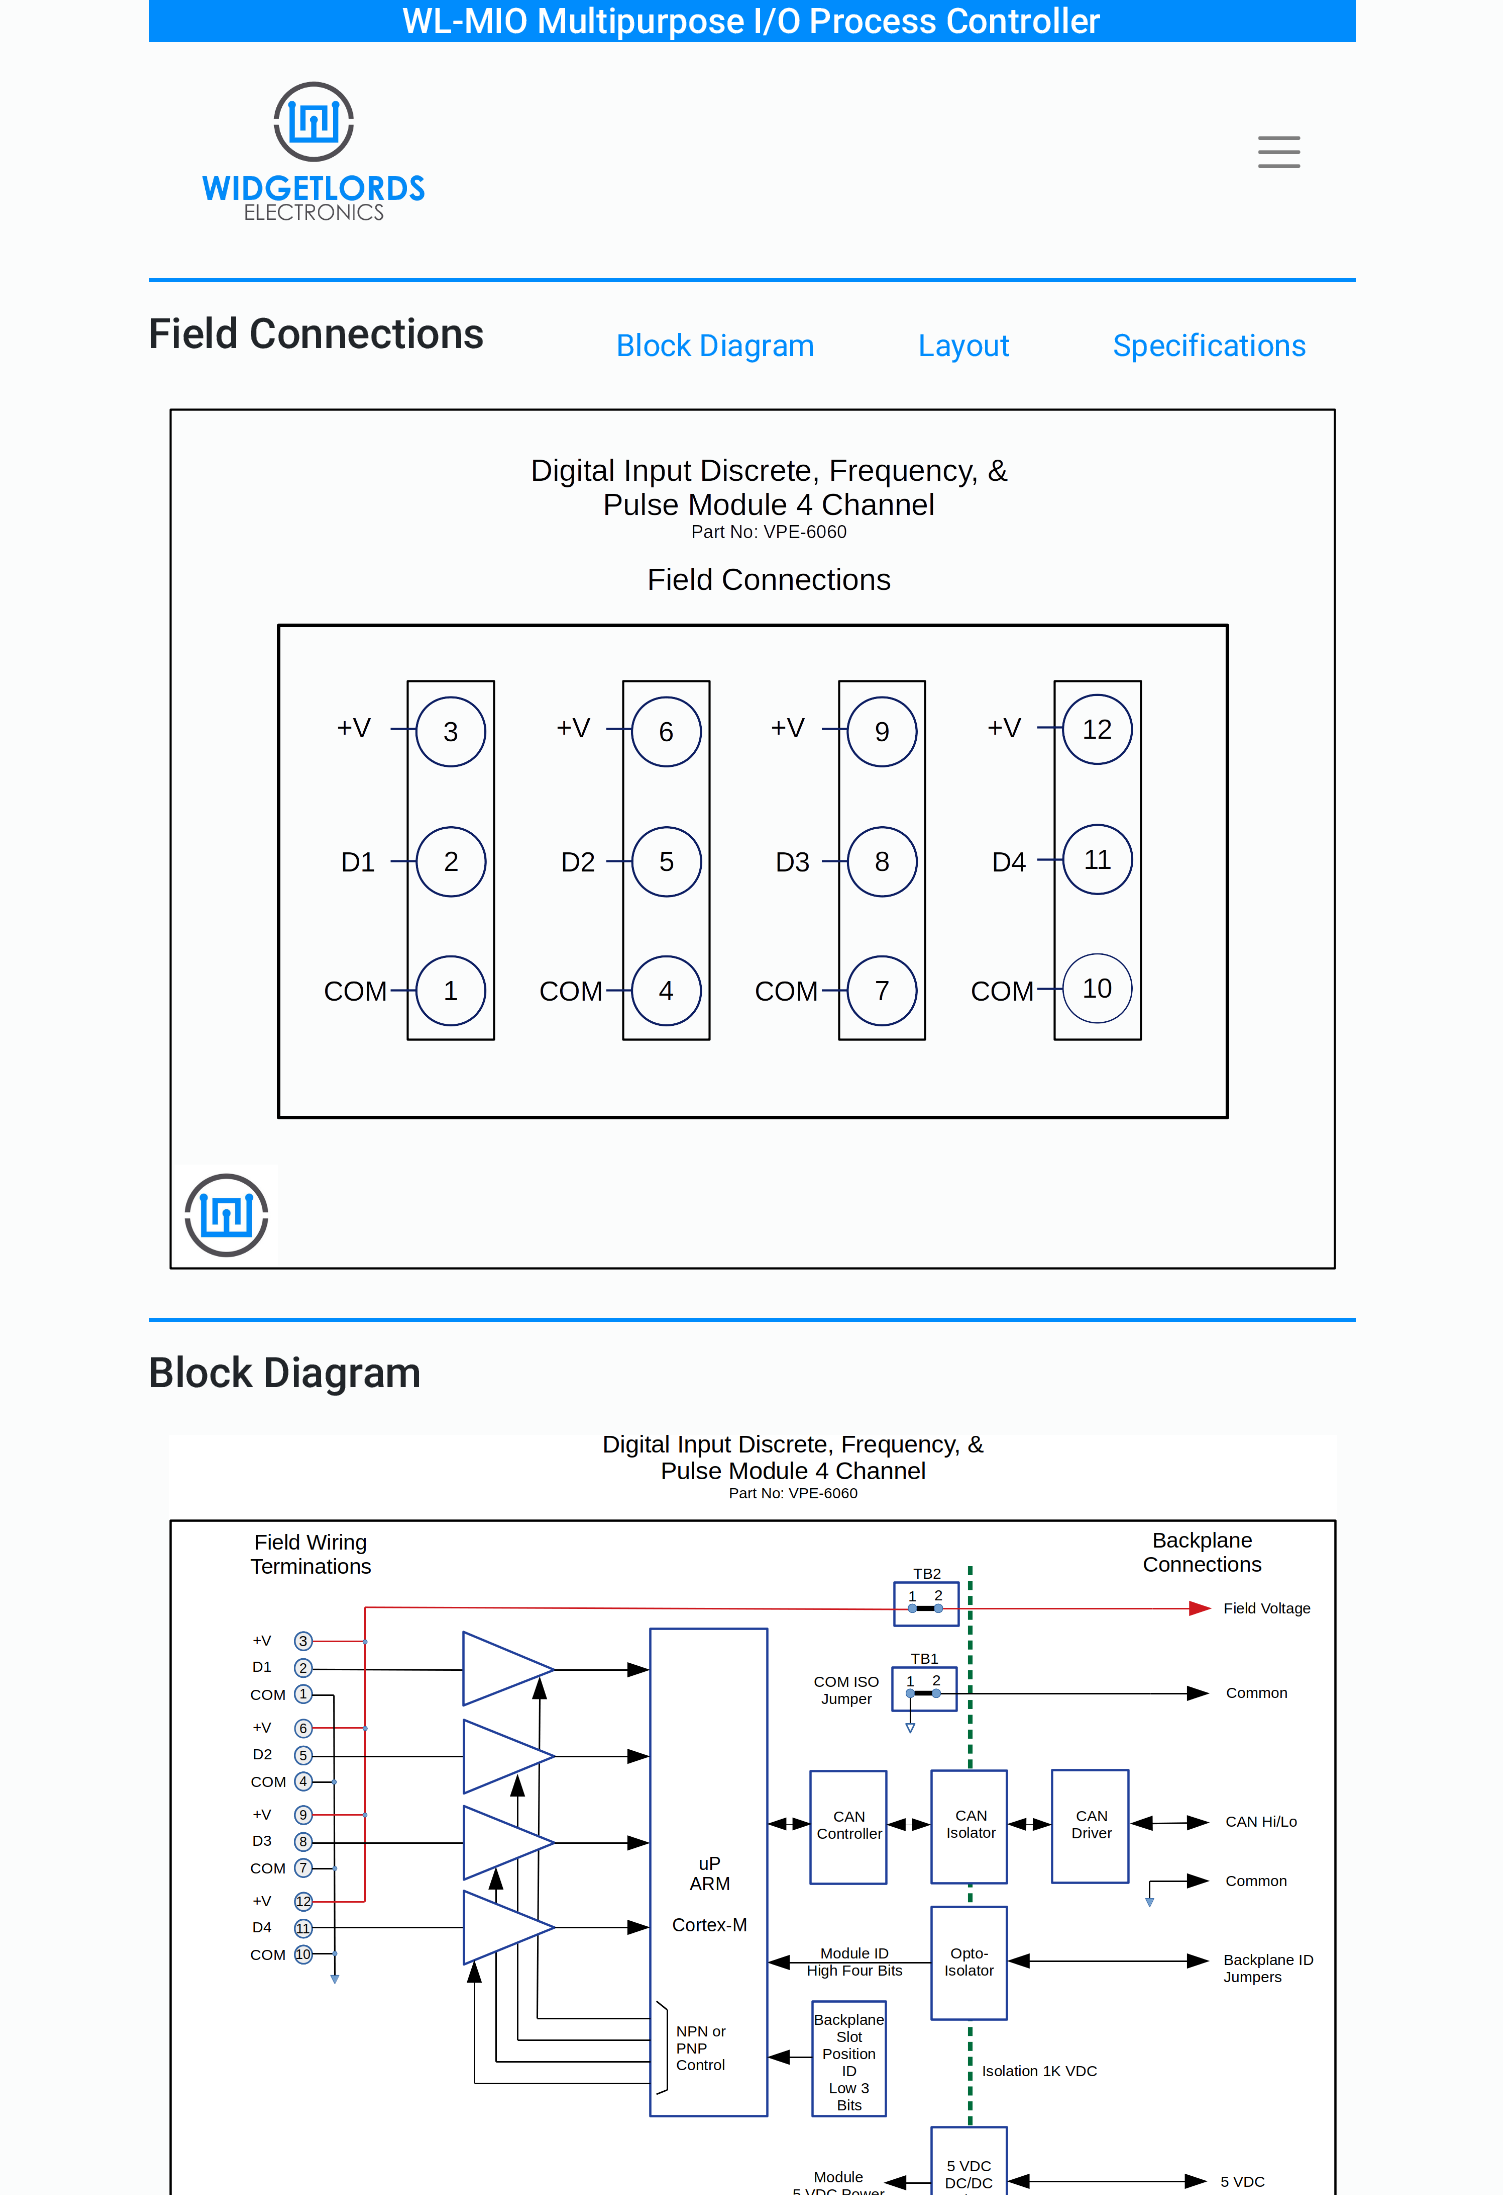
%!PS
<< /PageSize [1503 2195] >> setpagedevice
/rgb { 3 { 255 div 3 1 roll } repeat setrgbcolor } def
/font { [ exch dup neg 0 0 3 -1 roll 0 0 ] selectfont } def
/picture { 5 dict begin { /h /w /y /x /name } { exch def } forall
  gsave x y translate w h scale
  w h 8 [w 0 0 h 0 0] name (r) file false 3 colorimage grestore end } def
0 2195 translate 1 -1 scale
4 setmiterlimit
251 252 252 rgb
0 0 1503 2195 rectfill
0 140 253 rgb
149 0 1207 42 rectfill
(img/1.rgb) 202 81 223 140 picture
126 126 126 rgb
3.5 setlinewidth
1 setlinecap
1260 138 moveto 1298.5 138 lineto 1260 152 moveto 1298.5 152 lineto 1260 166 moveto 1298.5 166 lineto stroke
0 140 253 rgb
149 278 1207 4 rectfill
(img/2.rgb) 169 408 1167 862 picture
149 1318 1207 4 rectfill
(img/3.rgb) 169 1435 1168 760 picture
/Roboto-Medium 35 font
255 255 255 rgb
402 33 moveto (WL-MIO Multipurpose I/O Process Controller) show
/Roboto-Medium 42 font
33 37 41 rgb
148 348 moveto (Field Connections) show
/Roboto-Regular 30.75 font
0 140 253 rgb
[
  [(Block Diagram) 616 356]
  [(Layout) 918 356]
  [(Specifications) 1113 356]
] { aload pop moveto show } forall
/Roboto-Medium 42 font
33 37 41 rgb
148 1387 moveto (Block Diagram) show
showpage
